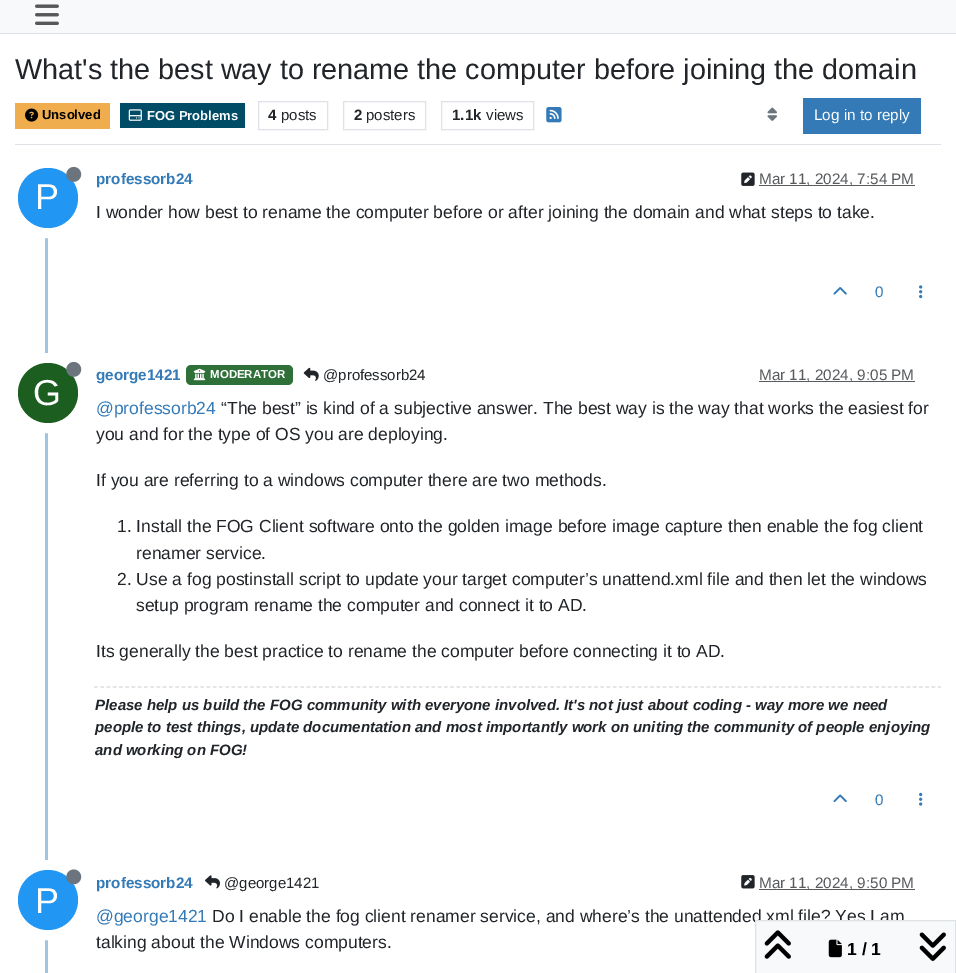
%!PS
<< /PageSize [956 973] >> setpagedevice
/rgb { 3 { 255 div 3 1 roll } repeat setrgbcolor } def
/font { [ exch dup neg 0 0 3 -1 roll 0 0 ] selectfont } def
/circle { newpath 0 360 arc closepath } def
/roundrect { 5 dict begin { /r /h /w /y /x } { exch def } forall
  x r add y moveto x w add y 2 copy h add r arct x w add y h add x 1 index r arct
  x y h add x y r arct x y 2 copy exch w add exch r arct closepath end } def
/picture { 5 dict begin { /h /w /y /x /name } { exch def } forall
  gsave x y translate w h scale
  w h 8 [w 0 0 h 0 0] name (r) file false 3 colorimage grestore end } def
0 973 translate 1 -1 scale
4 setmiterlimit
255 255 255 rgb
0 0 956 973 rectfill
248 249 250 rgb
0 0 956 33 rectfill
222 226 230 rgb
0 33 956 1 rectfill
(img/1.rgb) 35 4 24 21 picture
15 144 926 1 rectfill
240 173 78 rgb
15 103 95 26 rectfill
(img/2.rgb) 25 108 14 14 picture
0 76 102 rgb
120 103 125 25 rectfill
(img/3.rgb) 128 109 14 12 picture
222 226 230 rgb
258.5 101.5 69 28 rectstroke
343.5 101.5 82 28 rectstroke
441.5 101.5 92 28 rectstroke
(img/4.rgb) 546 107 16 16 picture
(img/5.rgb) 767 107 10 14 picture
51 122 183 rgb
803 98 118 36 rectfill
160 196 228 rgb
45 165 3 808 rectfill
(img/6.rgb) 741 172 14 14 picture
89 92 95 rgb
759 185 156 1 rectfill
255 255 255 rgb
10 setlinewidth
48 198 35 circle stroke
33 150 243 rgb
48 198 30 circle fill
(img/7.rgb) 66 166 16 16 picture
(img/8.rgb) 833 287 14 8 picture
(img/9.rgb) 919 285 4 14 picture
47 112 57 rgb
186 365 107 20 5 roundrect fill
(img/10.rgb) 193 368 13 13 picture
(img/11.rgb) 303 367 16 14 picture
89 92 95 rgb
759 381 156 1 rectfill
255 255 255 rgb
48 393 35 circle stroke
27 94 32 rgb
48 393 30 circle fill
(img/12.rgb) 66 361 16 16 picture
222 222 222 rgb
1.2 setlinewidth
[3.75 2.5] 0 setdash
94 687 moveto 941 687 lineto stroke
(img/13.rgb) 833 794 14 9 picture
(img/14.rgb) 919 792 4 14 picture
(img/15.rgb) 205 875 15 14 picture
(img/16.rgb) 741 875 14 14 picture
89 92 95 rgb
759 889 156 1 rectfill
255 255 255 rgb
10 setlinewidth
[] 0 setdash
48 900 35 circle stroke
33 150 243 rgb
48 900 30 circle fill
(img/17.rgb) 66 869 16 16 picture
/LiberationSans-Regular 28.8 font
33 37 41 rgb
15 79 moveto (What's the best way to rename the computer before joining the domain) show
/LiberationSans-Bold 13 font
0 0 0 rgb
42 119 moveto (Unsolved) show
255 255 255 rgb
147 120 moveto (FOG Problems) show
/LiberationSans-Bold 15 font
33 37 41 rgb
268 120 moveto (4) show
/LiberationSans-Regular 15 font
281 120 moveto (posts) show
/LiberationSans-Bold 15 font
354 120 moveto (2) show
/LiberationSans-Regular 15 font
366 120 moveto (posters) show
/LiberationSans-Bold 15 font
452 120 moveto (1.1k) show
/LiberationSans-Regular 15 font
486 120 moveto (views) show
/LiberationSans-Regular 15.25 font
255 255 255 rgb
814 120 moveto (Log in to reply) show
/LiberationSans-Bold 15.25 font
51 122 183 rgb
96 184 moveto (professorb24) show
/LiberationSans-Regular 15.25 font
88 91 94 rgb
759 184 moveto (Mar 11, 2024, 7:54 PM) show
/LiberationSans-Regular 36 font
255 255 255 rgb
35 209 moveto (P) show
/LiberationSans-Regular 17.5 font
33 37 41 rgb
96 218 moveto (I wonder how best to rename the computer before or after joining the domain and what steps to take.) show
/LiberationSans-Regular 15.25 font
51 122 183 rgb
875 297 moveto (0) show
/LiberationSans-Bold 15.25 font
96 380 moveto (george1421) show
/LiberationSans-Bold 11.5 font
255 255 255 rgb
210 378 moveto (MODERATOR) show
/LiberationSans-Regular 15 font
33 37 41 rgb
323 380 moveto (@professorb24) show
/LiberationSans-Regular 15.25 font
88 91 94 rgb
759 380 moveto (Mar 11, 2024, 9:05 PM) show
/LiberationSans-Regular 36 font
255 255 255 rgb
33 405 moveto (G) show
/LiberationSans-Regular 17.5 font
51 122 183 rgb
96 414 moveto (@professorb24) show
33 37 41 rgb
[
  [(“The best” is kind of a subjective answer. The best way is the way that works the easiest for) 221 414]
  [(you and for the type of OS you are deploying.) 96 440]
  [(If you are referring to a windows computer there are two methods.) 96 486]
  [(1. Install the FOG Client software onto the golden image before image capture then enable the fog client) 117 532]
  [(renamer service.) 136 559]
  [(2. Use a fog postinstall script to update your target computer’s unattend.xml file and then let the windows) 117 585]
  [(setup program rename the computer and connect it to AD.) 136 611]
  [(Its generally the best practice to rename the computer before connecting it to AD.) 96 657]
] { aload pop moveto show } forall
/LiberationSans-BoldItalic 15 font
[
  [(Please help us build the FOG community with everyone involved. It's not just about coding - way more we need) 95 710]
  [(people to test things, update documentation and most importantly work on uniting the community of people enjoying) 95 732]
  [(and working on FOG!) 95 755]
] { aload pop moveto show } forall
/LiberationSans-Regular 15.25 font
51 122 183 rgb
875 805 moveto (0) show
/LiberationSans-Bold 15.25 font
96 888 moveto (professorb24) show
/LiberationSans-Regular 15 font
33 37 41 rgb
224 888 moveto (@george1421) show
/LiberationSans-Regular 15.25 font
88 91 94 rgb
759 888 moveto (Mar 11, 2024, 9:50 PM) show
/LiberationSans-Regular 36 font
255 255 255 rgb
35 913 moveto (P) show
/LiberationSans-Regular 17.5 font
51 122 183 rgb
96 922 moveto (@george1421) show
33 37 41 rgb
212 922 moveto (Do I enable the fog client renamer service, and where’s the unattended.xml file? Yes I am) show
96 948 moveto (talking about the Windows computers.) show
248 249 250 rgb
755.5 920.5 moveto 955.5 920.5 lineto 955.5 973.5 lineto 755.5 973.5 lineto closepath gsave fill grestore
222 226 230 rgb
1 setlinewidth
stroke
(img/18.rgb) 764 930 27 29 picture
(img/19.rgb) 828 939 14 19 picture
/LiberationSans-Bold 17.5 font
0 0 0 rgb
847 955 moveto (1 / 1) show
(img/20.rgb) 919 932 27 29 picture
showpage
